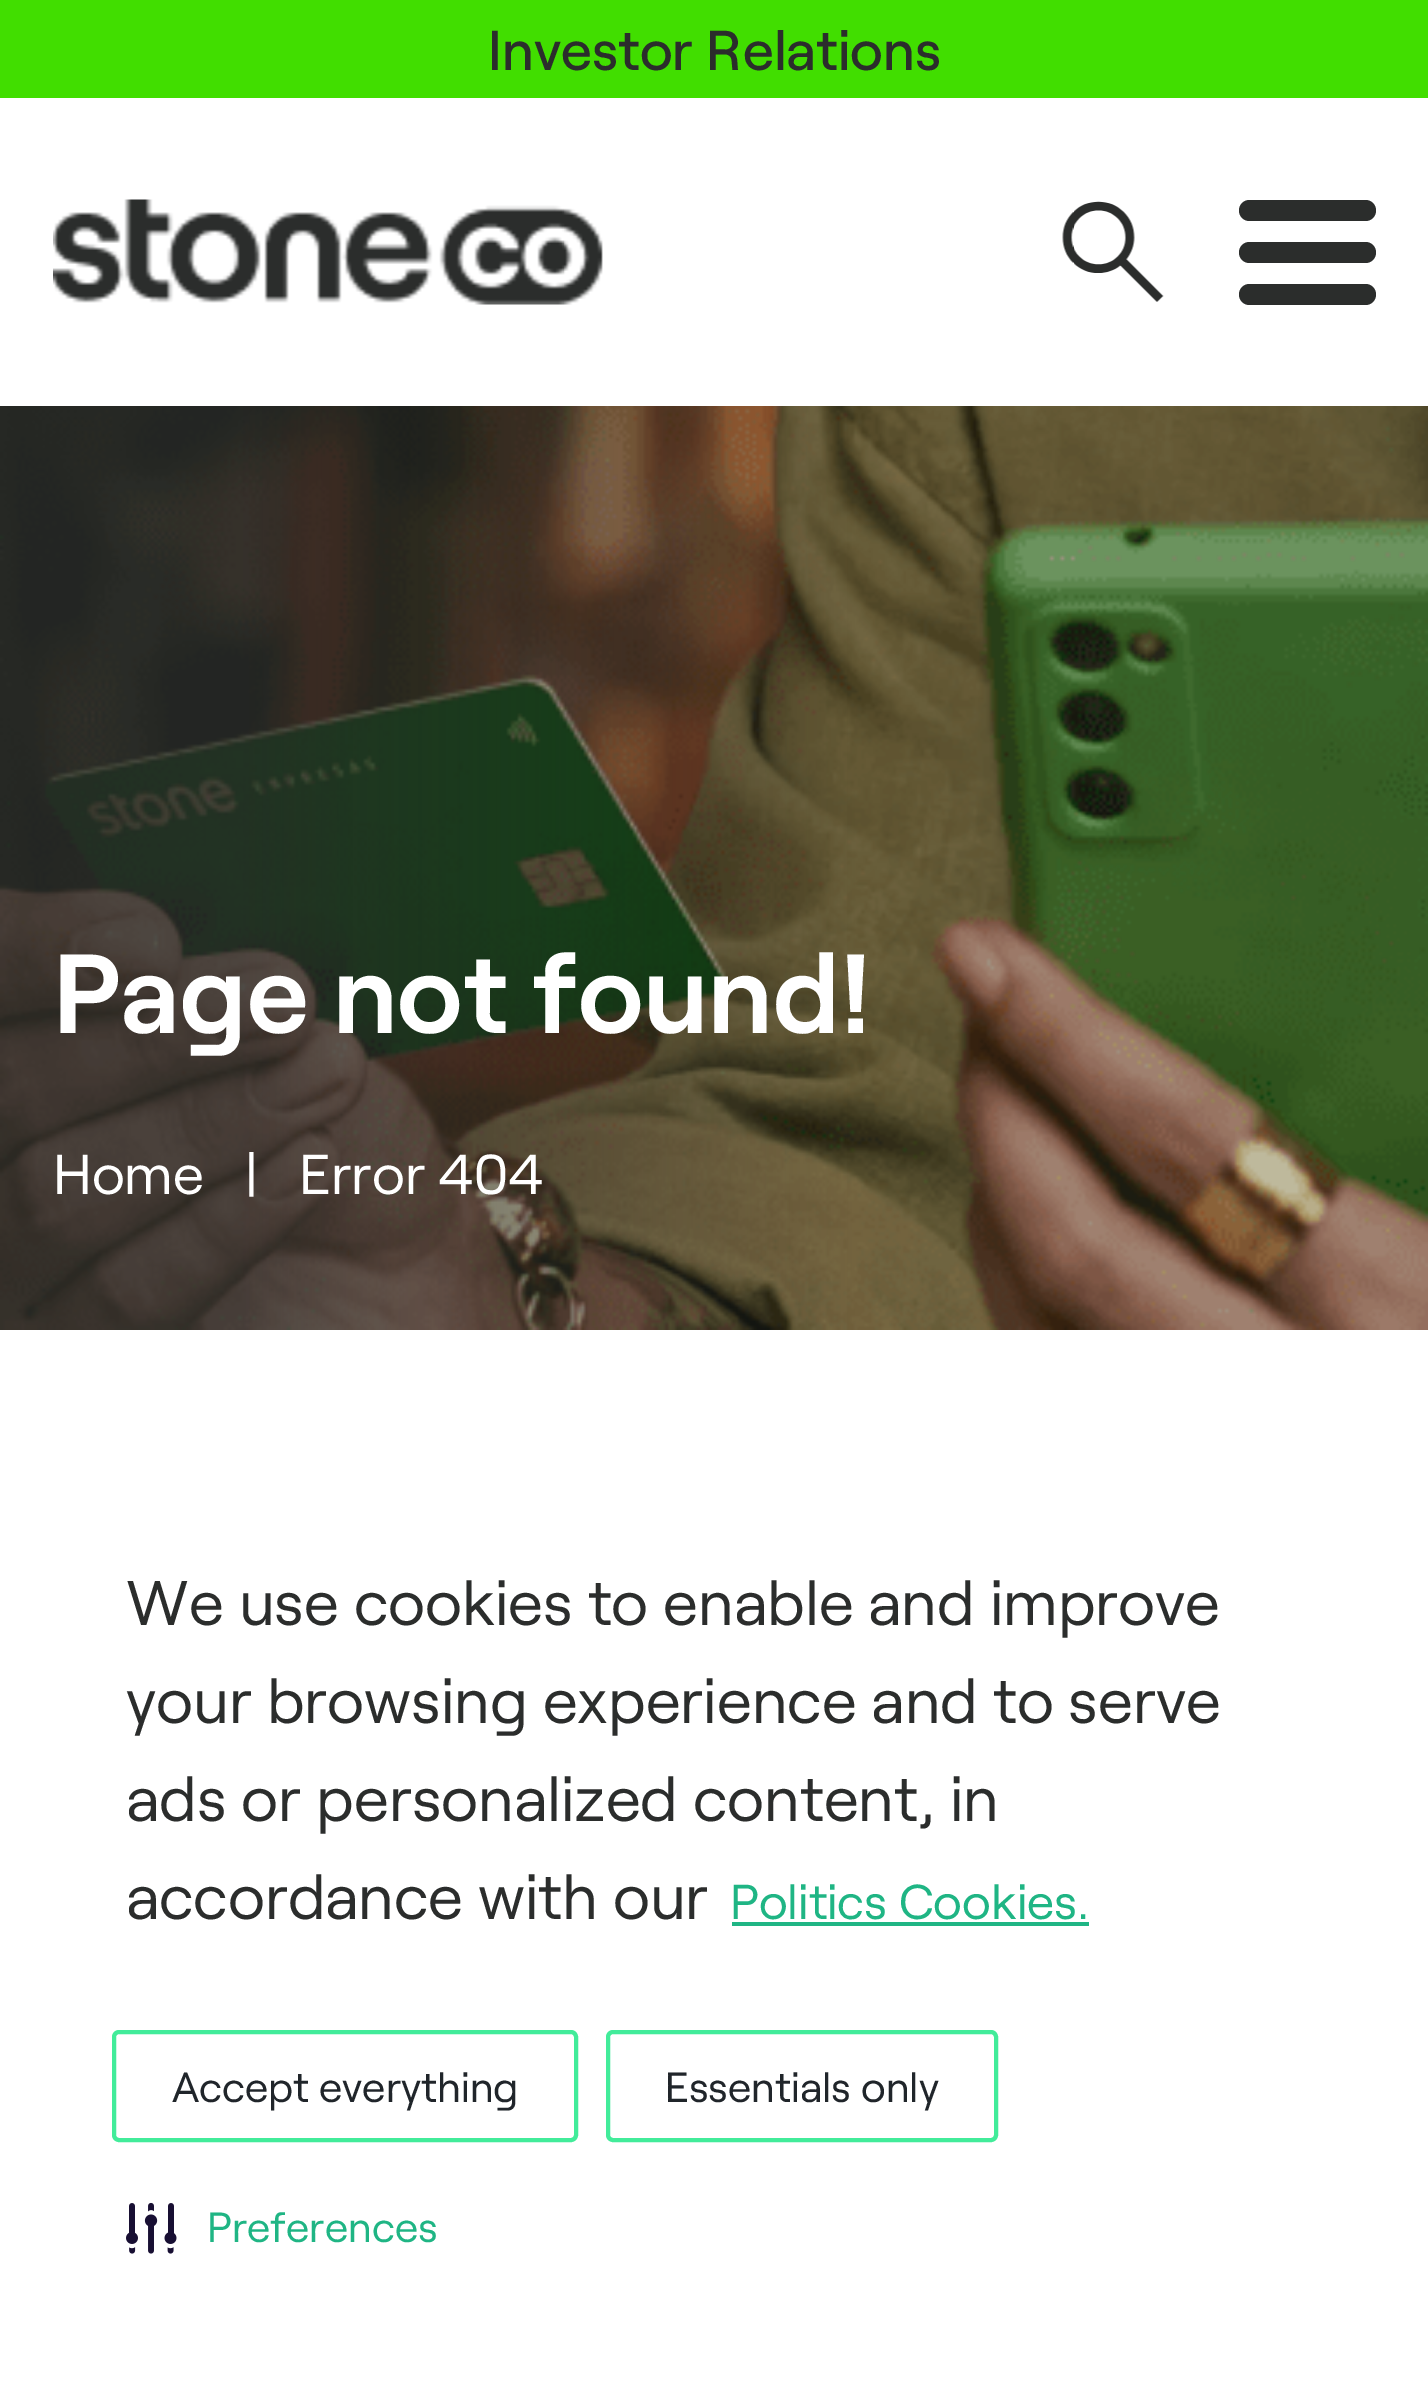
%!PS
<< /PageSize [1428 2392] >> setpagedevice
/rgb { 3 { 255 div 3 1 roll } repeat setrgbcolor } def
/font { [ exch dup neg 0 0 3 -1 roll 0 0 ] selectfont } def
/roundrect { 5 dict begin { /r /h /w /y /x } { exch def } forall
  x r add y moveto x w add y 2 copy h add r arct x w add y h add x 1 index r arct
  x y h add x y r arct x y 2 copy exch w add exch r arct closepath end } def
/picture { 5 dict begin { /h /w /y /x /name } { exch def } forall
  gsave x y translate w h scale
  w h 8 [w 0 0 h 0 0] name (r) file false 3 colorimage grestore end } def
0 2392 translate 1 -1 scale
4 setmiterlimit
255 255 255 rgb
0 0 1428 2392 rectfill
65 222 0 rgb
0 0 1428 98 rectfill
(img/1.rgb) 53 199 550 106 picture
(img/2.rgb) 1062 201 102 101 picture
43 45 44 rgb
1239 200 137 21 10.5 roundrect fill
1239 242 137 21 10.5 roundrect fill
1239 284 137 21 10.5 roundrect fill
(img/3.rgb) 0 406 1428 924 picture
31 181 132 rgb
732 1922 357 4 rectfill
66 236 154 rgb
4 setlinewidth
114 2032 462 108 5 roundrect stroke
608 2032 388 108 5 roundrect stroke
(img/4.rgb) 126 2202 51 52 picture
/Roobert-Medium 56 font
43 45 44 rgb
488 70 moveto (Investor Relations) show
/Roobert-SemiBold 112 font
255 255 255 rgb
53 1033 moveto (Page not found!) show
/Roobert-Regular 56 font
[
  [(Home) 53 1194]
  [(|) 245 1194]
  [(Error 404) 299 1194]
] { aload pop moveto show } forall
/Roobert-Regular 63 font
43 45 44 rgb
[
  [(We use cookies to enable and improve) 126 1625]
  [(your browsing experience and to serve) 126 1723]
  [(ads or personalized content, in) 126 1821]
  [(accordance with our) 126 1919]
] { aload pop moveto show } forall
/Roobert-Regular 49 font
31 181 132 rgb
730 1919 moveto (Politics Cookies.) show
/Roobert-Regular 42 font
32 37 42 rgb
172 2102 moveto (Accept everything) show
665 2102 moveto (Essentials only) show
31 181 132 rgb
207 2242 moveto (Preferences) show
showpage
